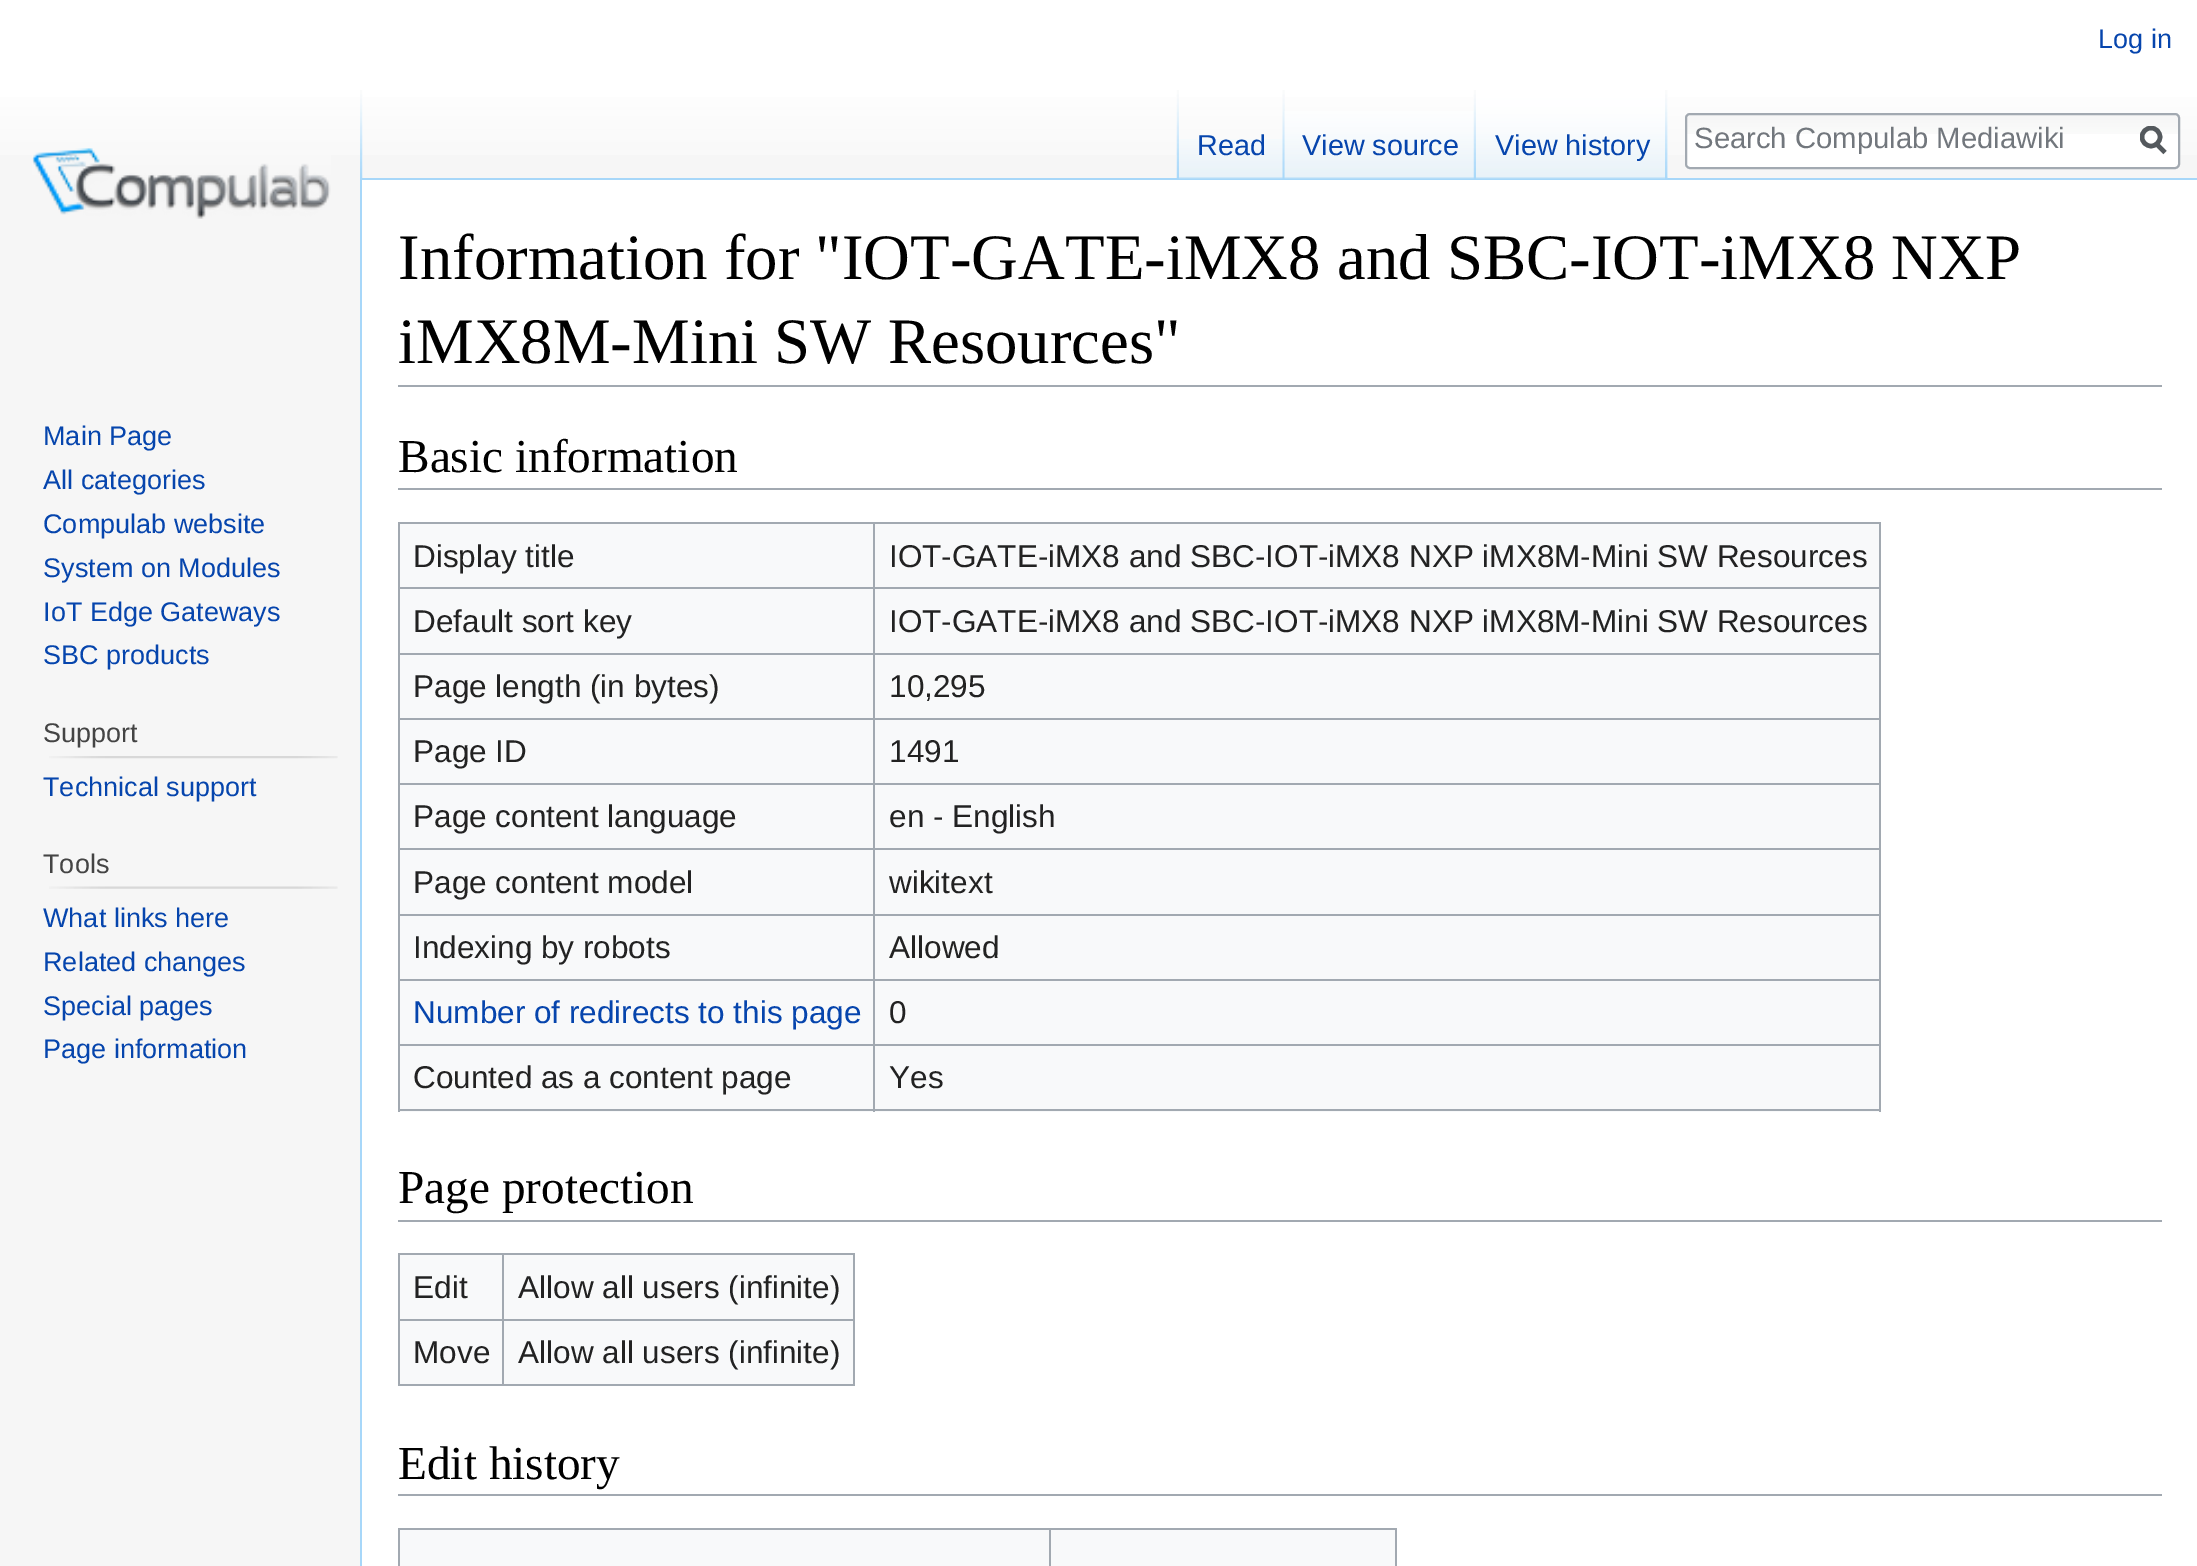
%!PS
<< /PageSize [2197 1566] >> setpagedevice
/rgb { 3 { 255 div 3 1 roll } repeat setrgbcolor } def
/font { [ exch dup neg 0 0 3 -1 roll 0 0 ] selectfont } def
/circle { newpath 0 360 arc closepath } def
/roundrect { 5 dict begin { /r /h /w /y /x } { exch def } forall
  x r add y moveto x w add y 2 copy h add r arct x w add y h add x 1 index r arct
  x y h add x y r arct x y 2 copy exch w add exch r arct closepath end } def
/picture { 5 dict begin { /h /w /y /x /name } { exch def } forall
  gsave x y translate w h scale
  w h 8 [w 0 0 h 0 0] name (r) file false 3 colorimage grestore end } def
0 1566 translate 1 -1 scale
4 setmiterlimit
246 246 246 rgb
0 0 2197 1566 rectfill
gsave 0 0 moveto 2197 0 lineto 2197 155 lineto 0 155 lineto closepath clip newpath
<< /ShadingType 2 /ColorSpace /DeviceRGB /Coords [1099 0 1099 180] /Extend [true true] /Function << /FunctionType 3 /Domain [0 1] /Functions [<< /FunctionType 2 /Domain [0 1] /C0 [1 1 1] /C1 [1 1 1] /N 1 >> << /FunctionType 2 /Domain [0 1] /C0 [1 1 1] /C1 [0.965 0.965 0.965] /N 1 >>] /Bounds [0.5] /Encode [0 1 0 1] >> >> shfill grestore
(img/1.rgb) 360 90 3 88 picture
(img/2.rgb) 1176 90 3 88 picture
(img/3.rgb) 1667 90 1 88 picture
167 215 249 rgb
360 178 1837 2 rectfill
(img/4.rgb) 1179 139 106 40 picture
(img/5.rgb) 1282 90 3 89 picture
(img/6.rgb) 1284 111 190 68 picture
(img/7.rgb) 1473 90 3 89 picture
(img/8.rgb) 1476 90 192 89 picture
(img/9.rgb) 1665 90 3 89 picture
255 255 255 rgb
1685 113 495 56 5 roundrect fill
(img/10.rgb) 1685 115 495 19 picture
162 169 177 rgb
2 setlinewidth
1686 114 493 54 4 roundrect stroke
84 89 93 rgb
4.5 setlinewidth
2165 152.5 moveto 2156 143.5 lineto stroke
gsave
2140 126 27 29 rectclip
2151 137 9 circle stroke
grestore
(img/11.rgb) 32 148 299 71 picture
(img/12.rgb) 49 756 289 3 picture
(img/13.rgb) 49 886 289 3 picture
[
  [362 180 1835 1386 255 255 255]
  [360 178 2 1388 167 215 249]
  [398 385 1764 2 162 169 177]
  [398 488 1764 2 162 169 177]
  [400 524 1479 588 248 249 250]
  [398 522 1483 2 162 169 177]
  [1879 522 2 590 162 169 177]
  [398 1109 1483 2 162 169 177]
  [398 522 2 590 162 169 177]
  [873 587 1008 2 162 169 177]
  [873 653 1008 2 162 169 177]
  [873 718 1008 2 162 169 177]
  [873 783 1008 2 162 169 177]
  [873 848 1008 2 162 169 177]
  [873 914 1008 2 162 169 177]
  [873 979 1008 2 162 169 177]
  [873 1044 1008 2 162 169 177]
  [873 1044 2 68 162 169 177]
  [398 1044 477 2 162 169 177]
  [873 979 2 67 162 169 177]
  [398 979 477 2 162 169 177]
  [873 914 2 67 162 169 177]
  [398 914 477 2 162 169 177]
  [873 848 2 68 162 169 177]
  [398 848 477 2 162 169 177]
  [873 783 2 68 162 169 177]
  [398 783 477 2 162 169 177]
  [873 718 2 67 162 169 177]
  [398 718 477 2 162 169 177]
  [873 653 2 67 162 169 177]
  [398 653 477 2 162 169 177]
  [873 587 2 68 162 169 177]
  [398 587 477 2 162 169 177]
  [873 522 2 68 162 169 177]
  [398 1220 1764 2 162 169 177]
  [400 1255 453 129 248 249 250]
  [398 1253 457 2 162 169 177]
  [853 1253 2 133 162 169 177]
  [398 1384 457 2 162 169 177]
  [398 1253 2 133 162 169 177]
  [502 1319 353 2 162 169 177]
  [502 1319 2 67 162 169 177]
  [398 1319 106 2 162 169 177]
  [502 1253 2 68 162 169 177]
  [398 1494 1764 2 162 169 177]
  [400 1530 995 36 248 249 250]
  [398 1528 999 2 162 169 177]
  [1395 1528 2 38 162 169 177]
  [398 1528 2 38 162 169 177]
  [1049 1528 2 38 162 169 177]
] { aload pop rgb rectfill } forall
/LiberationSans-Regular 27 font
6 69 173 rgb
2098 48 moveto (Log in) show
/LiberationSans-Regular 28.75 font
[
  [(Read) 1197 155]
  [(View source) 1302 155]
  [(View history) 1495 155]
] { aload pop moveto show } forall
/LiberationSans-Regular 29.25 font
114 119 125 rgb
1694 148 moveto (Search Compulab Mediawiki) show
/LiberationSans-Regular 27 font
6 69 173 rgb
[
  [(Main Page) 43 445]
  [(All categories) 43 489]
  [(Compulab website) 43 533]
  [(System on Modules) 43 577]
  [(IoT Edge Gateways) 43 621]
  [(SBC products) 43 664]
] { aload pop moveto show } forall
68 68 68 rgb
43 742 moveto (Support) show
6 69 173 rgb
43 796 moveto (Technical support) show
68 68 68 rgb
43 873 moveto (Tools) show
6 69 173 rgb
[
  [(What links here) 43 927]
  [(Related changes) 43 971]
  [(Special pages) 43 1015]
  [(Page information) 43 1058]
] { aload pop moveto show } forall
/LiberationSerif-Regular 64.8 font
0 0 0 rgb
398 279 moveto (Information for "IOT-GATE-iMX8 and SBC-IOT-iMX8 NXP) show
398 363 moveto (iMX8M-Mini SW Resources") show
/LiberationSerif-Regular 47.25 font
398 472 moveto (Basic information) show
/LiberationSans-Regular 31.5 font
34 34 34 rgb
[
  [(Display title) 413 567]
  [(IOT-GATE-iMX8 and SBC-IOT-iMX8 NXP iMX8M-Mini SW Resources) 889 567]
  [(Default sort key) 413 632]
  [(IOT-GATE-iMX8 and SBC-IOT-iMX8 NXP iMX8M-Mini SW Resources) 889 632]
  [(Page length \(in bytes\)) 413 697]
  [(10,295) 889 697]
  [(Page ID) 413 762]
  [(1491) 889 762]
  [(Page content language) 413 827]
  [(en - English) 889 827]
  [(Page content model) 413 893]
  [(wikitext) 889 893]
  [(Indexing by robots) 413 958]
  [(Allowed) 889 958]
] { aload pop moveto show } forall
6 69 173 rgb
413 1023 moveto (Number of redirects to this page) show
34 34 34 rgb
[
  [(0) 889 1023]
  [(Counted as a content page) 413 1088]
  [(Yes) 889 1088]
] { aload pop moveto show } forall
/LiberationSerif-Regular 47.25 font
0 0 0 rgb
398 1203 moveto (Page protection) show
/LiberationSans-Regular 31.5 font
34 34 34 rgb
[
  [(Edit) 413 1298]
  [(Allow all users \(infinite\)) 518 1298]
  [(Move) 413 1363]
  [(Allow all users \(infinite\)) 518 1363]
] { aload pop moveto show } forall
/LiberationSerif-Regular 47.25 font
0 0 0 rgb
398 1479 moveto (Edit history) show
showpage
